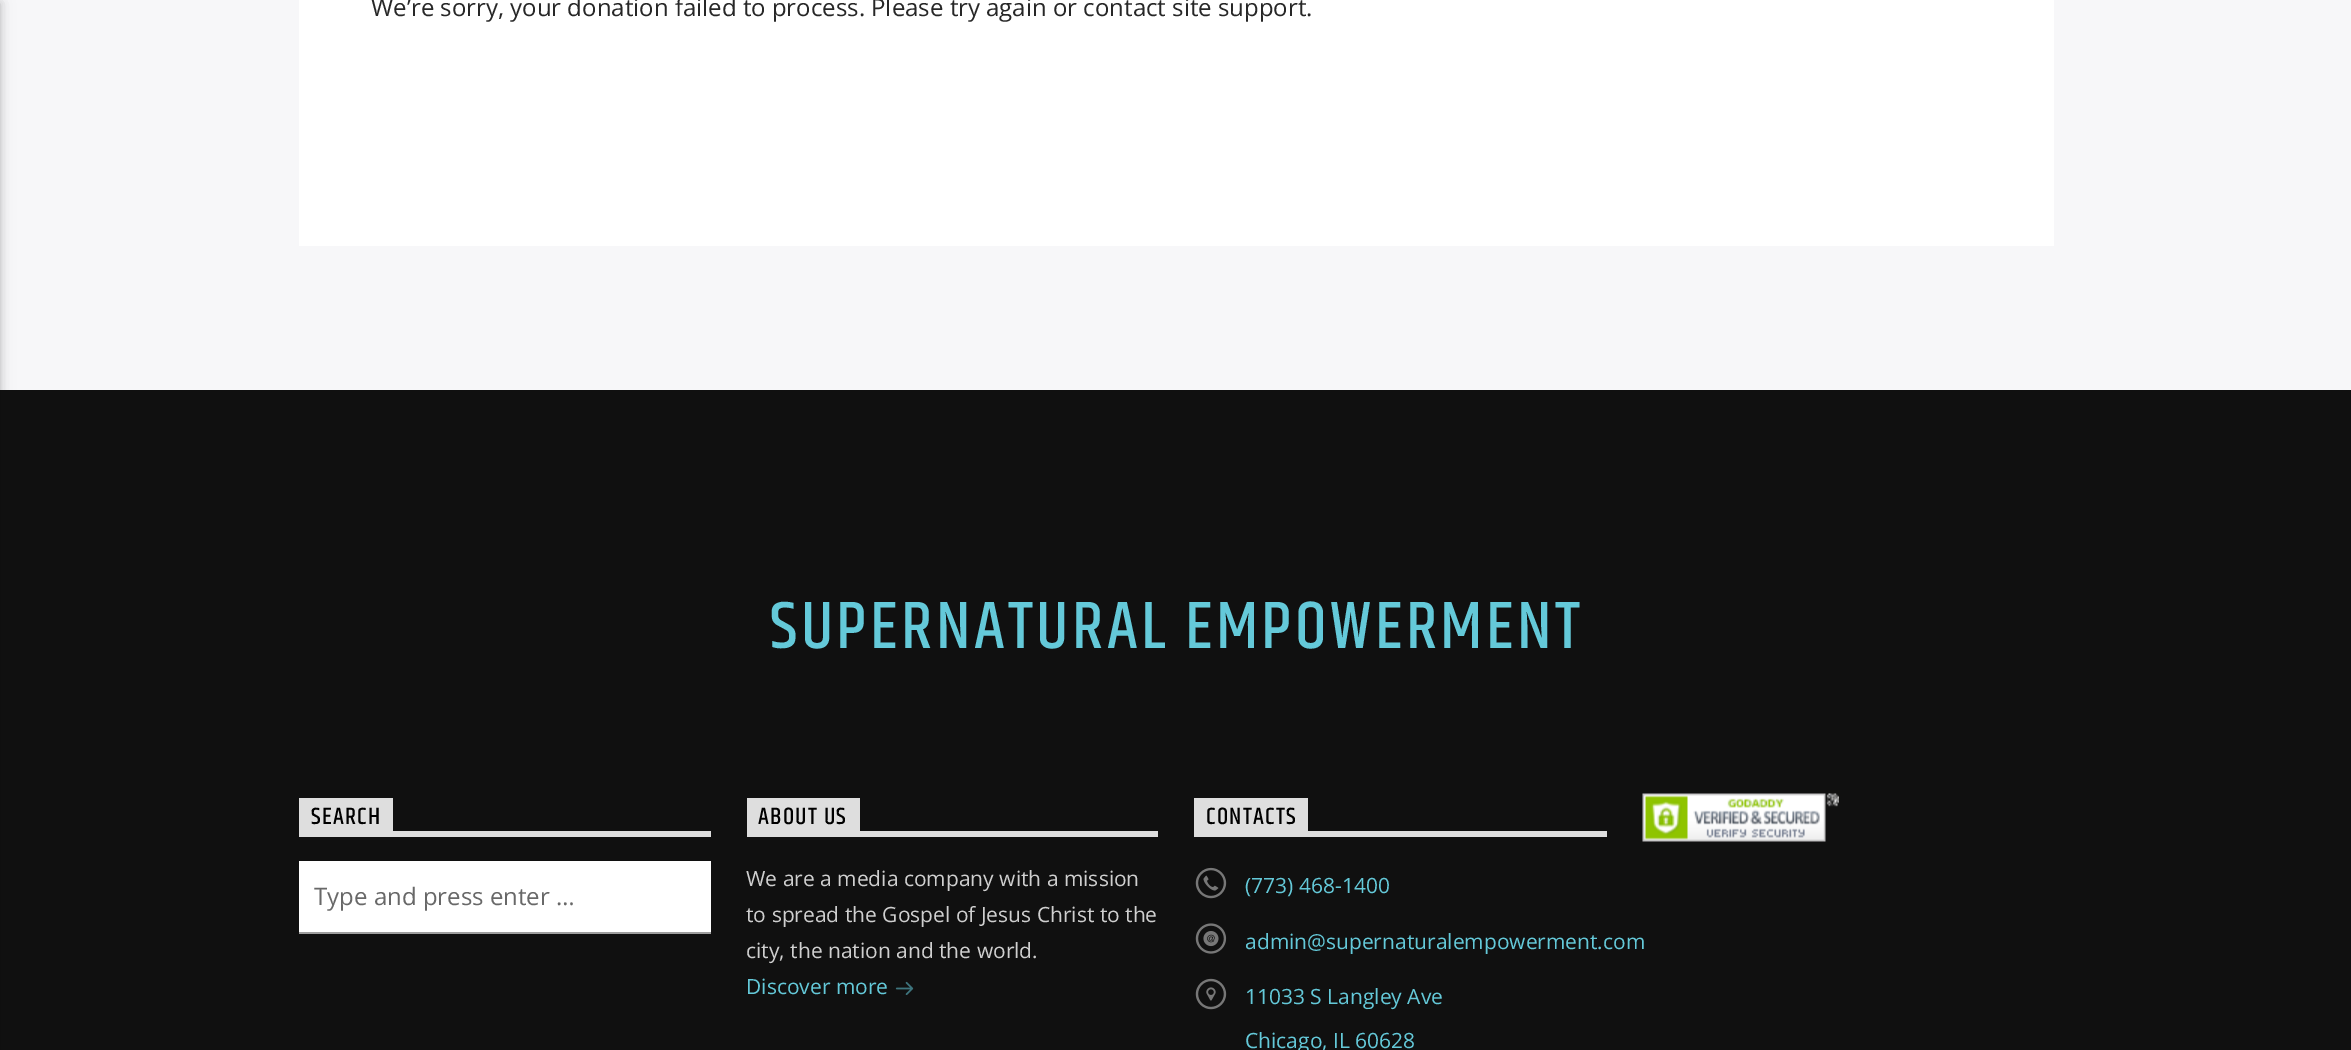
%!PS
<< /PageSize [2351 1050] /PageUsesTransparency true >> setpagedevice
/rgb { 3 { 255 div 3 1 roll } repeat setrgbcolor } def
/font { [ exch dup neg 0 0 3 -1 roll 0 0 ] selectfont } def
/alpha { dup .setfillconstantalpha .setstrokeconstantalpha } def
/roundrect { 5 dict begin { /r /h /w /y /x } { exch def } forall
  x r add y moveto x w add y 2 copy h add r arct x w add y h add x 1 index r arct
  x y h add x y r arct x y 2 copy exch w add exch r arct closepath end } def
/shadow { 12 dict begin { /a /b /q /h /w /y /x } { exch def } forall gsave /was 0 def
  9 -2 -9 { dup b mul 4 div /e exch def 1 sub .425 mul 2.718 exch exp 1 add a .99 .min exch div /now exch def
    1 1 now sub 1 was sub div sub alpha /was now def
    w h .min e 2 mul add 0 gt { x e sub y e sub w e 2 mul add h e 2 mul add
      q e add b .6 mul add w h .min 2 div e add .min 0 .max roundrect fill } if } for grestore end } def
/picture { 5 dict begin { /h /w /y /x /name } { exch def } forall
  gsave x y translate w h scale
  w h 8 [w 0 0 h 0 0] name (r) file false 3 colorimage grestore end } def
0 .pushpdf14devicefilter
0 1050 translate 1 -1 scale
4 setmiterlimit
247 247 249 rgb
0 0 2351 1050 rectfill
16 16 16 rgb
0 390 2351 660 rectfill
0 0 0 rgb
-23 3 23 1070 0 7.5 0.12 shadow
-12 3 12 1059 0 4 0.16 shadow
[
  [299 0 1755 246 255 255 255]
  [393 831 318 6 222 222 222]
  [299 798 94 39 222 222 222]
  [299 861 412 71 255 255 255]
  [299 932 412 2 158 158 158]
  [860 831 298 6 222 222 222]
  [747 798 113 39 222 222 222]
] { aload pop rgb rectfill } forall
(img/1.rgb) 895 981 19 14 picture
1308 831 299 6 rectfill
1194 798 114 39 rectfill
(img/2.rgb) 1195 867 32 32 picture
(img/3.rgb) 1195 923 32 31 picture
(img/4.rgb) 1195 978 32 32 picture
(img/5.rgb) 1642 793 197 49 picture
/OpenSans-Regular 24 font
39 39 39 rgb
371 16 moveto (We’re sorry, your donation failed to process. Please try again or contact site support.) show
/Khand-Medium 67.9 font
100 201 217 rgb
770 648 moveto 3.4 0 (SUPERNATURAL EMPOWERMENT) ashow
/Khand-Medium 24 font
0 0 0 rgb
311 824 moveto 1.25 0 (SEARCH) ashow
/OpenSans-Regular 24 font
104 104 104 rgb
314 905 moveto (Type and press enter …) show
/Khand-Medium 24 font
0 0 0 rgb
758 824 moveto 1.25 0 (ABOUT US) ashow
/OpenSans-Regular 21 font
207 207 207 rgb
[
  [(We are a media company with a mission) 746 886]
  [(to spread the Gospel of Jesus Christ to the) 746 922]
  [(city, the nation and the world.) 746 958]
] { aload pop moveto show } forall
100 201 217 rgb
746 994 moveto (Discover more) show
/Khand-Medium 24 font
0 0 0 rgb
1206 824 moveto 1.25 0 (CONTACTS) ashow
/OpenSans-Regular 21 font
100 201 217 rgb
[
  [(\(773\) 468-1400) 1245 893]
  [(admin@supernaturalempowerment.com) 1245 949]
  [(11033 S Langley Ave) 1245 1004]
  [(Chicago, IL 60628) 1245 1048]
] { aload pop moveto show } forall
.poppdf14devicefilter showpage
